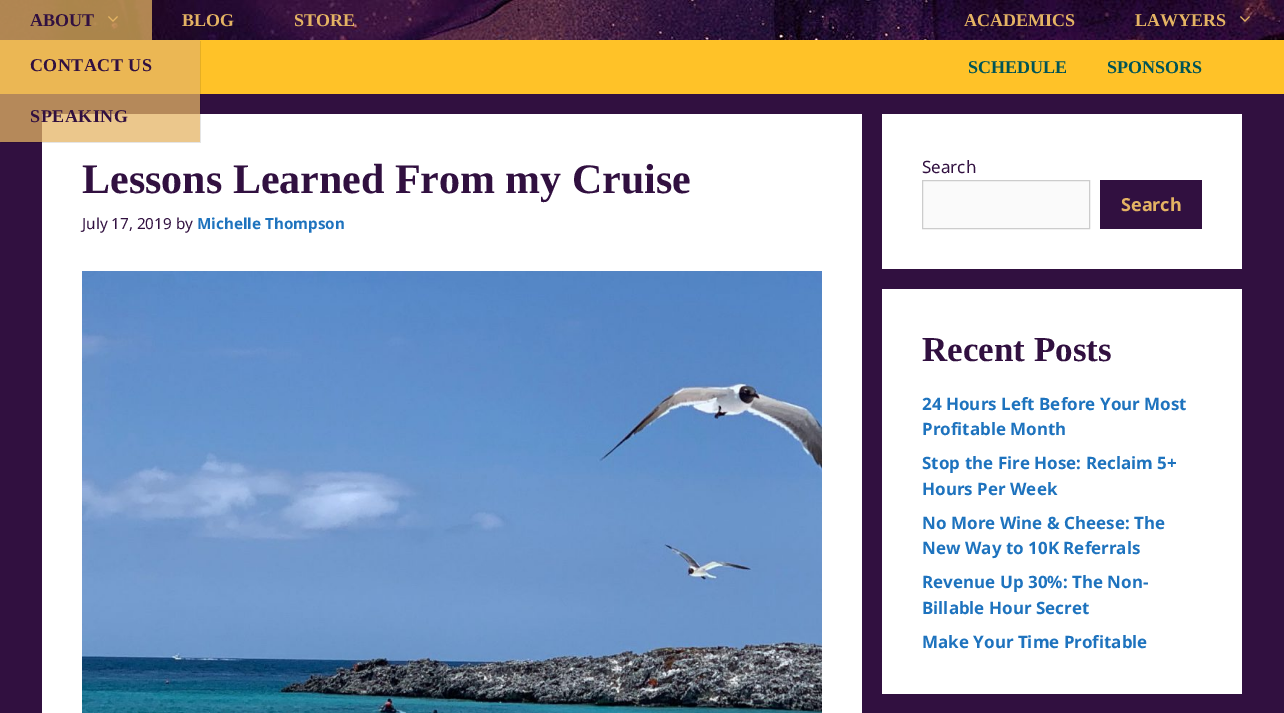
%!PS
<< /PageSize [1284 713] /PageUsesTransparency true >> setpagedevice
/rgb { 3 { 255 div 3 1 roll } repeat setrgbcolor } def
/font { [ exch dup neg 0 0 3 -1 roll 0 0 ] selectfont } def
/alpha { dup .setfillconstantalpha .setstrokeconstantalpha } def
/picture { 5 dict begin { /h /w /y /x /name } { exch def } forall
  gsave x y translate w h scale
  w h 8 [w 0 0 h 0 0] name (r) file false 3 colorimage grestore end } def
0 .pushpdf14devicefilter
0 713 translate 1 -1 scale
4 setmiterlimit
49 16 64 rgb
0 0 1284 713 rectfill
181 137 90 rgb
0 94 200 48 rectfill
(img/1.rgb) 0 0 1284 40 picture
0.74 alpha
228 179 99 rgb
0 0 152 40 rectfill
1 alpha
(img/2.rgb) 108 16 10 6 picture
[
  [200 40 1084 54 255 194 40]
  [0 40 200 54 235 183 84]
  [42 114 820 599 255 255 255]
  [42 114 158 28 235 199 140]
] { aload pop rgb rectfill } forall
0.1 alpha
0 0 0 rgb
1 142 moveto 1 143 lineto 201 143 lineto 201 41 lineto 200 41 lineto 200 142 lineto closepath fill
1 alpha
(img/3.rgb) 1240 16 10 6 picture
(img/4.rgb) 82 271 740 442 picture
255 255 255 rgb
882 114 360 155 rectfill
250 250 250 rgb
922.5 180.5 moveto 1089.5 180.5 lineto 1089.5 228.5 lineto 922.5 228.5 lineto closepath gsave fill grestore
204 204 204 rgb
stroke
49 16 64 rgb
1100 180 102 49 rectfill
255 255 255 rgb
882 289 360 405 rectfill
/LiberationSerif-Bold 18 font
49 16 64 rgb
30 26 moveto (ABOUT) show
30 71 moveto 0.5 0 (CONTACT US) ashow
30 122 moveto 0.5 0 (SPEAKING) ashow
228 179 99 rgb
[
  [(BLOG) 182 26]
  [(STORE) 294 26]
  [(ACADEMICS) 964 26]
  [(LAWYERS) 1135 26]
] { aload pop moveto show } forall
0 84 86 rgb
968 73 moveto (SCHEDULE) show
1107 73 moveto (SPONSORS) show
/LiberationSerif-Bold 42 font
49 16 64 rgb
82 193 moveto (Lessons Learned From my Cruise) show
/NotoSans-Regular 15.25 font
82 229 moveto (July 17, 2019 by) show
/NotoSans-Bold 15.25 font
30 115 190 rgb
197 229 moveto (Michelle Thompson) show
/NotoSans-Regular 17 font
49 16 64 rgb
922 173 moveto (Search) show
/NotoSans-Bold 18 font
228 179 99 rgb
1121 211 moveto (Search) show
/LiberationSerif-Bold 35 font
49 16 64 rgb
922 361 moveto (Recent Posts) show
/NotoSans-Bold 17 font
30 115 190 rgb
[
  [(24 Hours Left Before Your Most) 922 410]
  [(Profitable Month) 922 435]
  [(Stop the Fire Hose: Reclaim 5+) 922 469]
  [(Hours Per Week) 922 495]
  [(No More Wine & Cheese: The) 922 529]
  [(New Way to 10K Referrals) 922 554]
  [(Revenue Up 30%: The Non-) 922 588]
  [(Billable Hour Secret) 922 614]
  [(Make Your Time Profitable) 922 648]
] { aload pop moveto show } forall
.poppdf14devicefilter showpage
